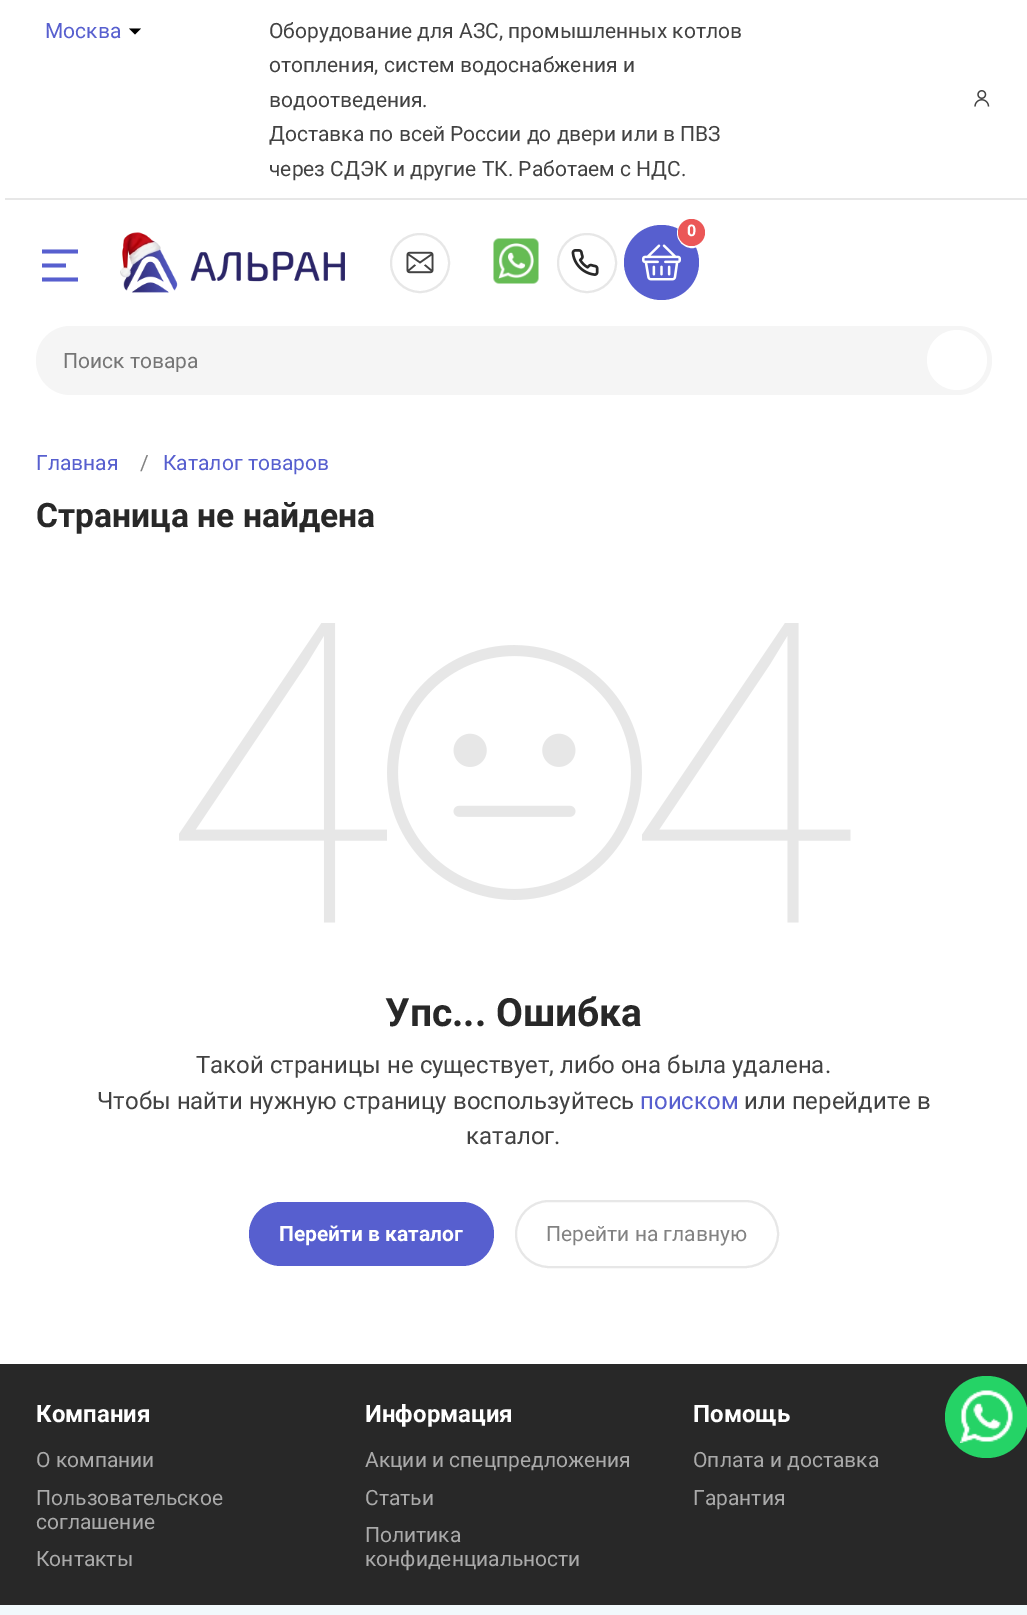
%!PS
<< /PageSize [1027 1615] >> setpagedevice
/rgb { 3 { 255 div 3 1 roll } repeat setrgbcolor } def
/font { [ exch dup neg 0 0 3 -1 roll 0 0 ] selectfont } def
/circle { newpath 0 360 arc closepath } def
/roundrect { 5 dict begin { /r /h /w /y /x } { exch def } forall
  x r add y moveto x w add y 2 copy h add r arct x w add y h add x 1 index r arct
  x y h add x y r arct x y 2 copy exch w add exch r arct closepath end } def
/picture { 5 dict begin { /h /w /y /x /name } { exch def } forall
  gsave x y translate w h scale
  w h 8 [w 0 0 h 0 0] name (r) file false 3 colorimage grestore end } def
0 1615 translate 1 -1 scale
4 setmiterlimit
255 255 255 rgb
0 0 1027 1615 rectfill
231 231 231 rgb
5 198 1022 2 rectfill
0 0 0 rgb
129 28.5 moveto 141 28.5 lineto 135 34.5 lineto closepath fill
(img/1.rgb) 974 90 16 17 picture
87 95 207 rgb
661.5 262.5 37.5 circle fill
(img/2.rgb) 642 244 39 37 picture
255 255 255 rgb
2 setlinewidth
692 233 14 circle stroke
235 87 87 rgb
691.5 232.5 13.5 circle fill
87 95 207 rgb
42 249.5 moveto 78 249.5 lineto 78 253.5 lineto 42 253.5 lineto closepath 42 263.5 moveto 66 263.5 lineto 66 267.5 lineto 42 267.5 lineto closepath 42 277.5 moveto 78 277.5 lineto 78 281.5 lineto 42 281.5 lineto closepath fill
(img/3.rgb) 120 232 225 61 picture
231 231 231 rgb
420 263 29 circle stroke
(img/4.rgb) 406 251 28 23 picture
(img/5.rgb) 493 238 46 46 picture
587 263 29 circle stroke
(img/6.rgb) 571 249 28 27 picture
245 245 245 rgb
36 326 956 69 34.5 roundrect fill
255 255 255 rgb
957 360 30 circle fill
(img/7.rgb) 179 623 672 300 picture
87 95 207 rgb
249 1202 245 64 32 roundrect fill
231 231 231 rgb
516 1201 262 66 33 roundrect stroke
40 40 40 rgb
0 1364 1027 241 rectfill
37 211 102 rgb
945 1376 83 82 41 roundrect fill
(img/8.rgb) 960 1390 53 53 picture
241 249 252 rgb
0 1605 1027 10 rectfill
/Roboto-Regular 21 font
87 95 207 rgb
45 38 moveto (Москва) show
66 66 66 rgb
[
  [(Оборудование для АЗС, промышленных котлов) 269 38]
  [(отопления, систем водоснабжения и) 269 72]
  [(водоотведения.) 269 107]
  [(Доставка по всей России до двери или в ПВЗ) 269 141]
  [(через СДЭК и другие ТК. Работаем с НДС.) 269 176]
] { aload pop moveto show } forall
/Roboto-Bold 16 font
255 255 255 rgb
687 236 moveto (0) show
gsave
63 348 849 24 rectclip
/Roboto-Regular 21 font
117 117 117 rgb
63 368 moveto (Поиск товара) show
grestore
/Roboto-Regular 21 font
87 95 207 rgb
36 470 moveto (Главная) show
130 130 130 rgb
140 470 moveto (/) show
87 95 207 rgb
163 470 moveto (Каталог товаров) show
/Roboto-Bold 33.6 font
40 40 40 rgb
36 527 moveto (Страница не найдена) show
/Roboto-Bold 39 font
385 1026 moveto (Упс... Ошибка) show
/Roboto-Regular 24 font
66 66 66 rgb
196 1073 moveto (Такой страницы не существует, либо она была удалена.) show
97 1109 moveto (Чтобы найти нужную страницу воспользуйтесь) show
87 95 207 rgb
640 1109 moveto (поиском) show
66 66 66 rgb
744 1109 moveto (или перейдите в) show
466 1144 moveto (каталог.) show
/Roboto-Bold 21 font
255 255 255 rgb
279 1241 moveto (Перейти в каталог) show
/Roboto-Regular 21 font
130 130 130 rgb
546 1241 moveto (Перейти на главную) show
/Roboto-Bold 24 font
255 255 255 rgb
36 1422 moveto (Компания) show
/Roboto-Regular 21 font
170 170 170 rgb
[
  [(О компании) 36 1467]
  [(Пользовательское) 36 1505]
  [(соглашение) 36 1529]
  [(Контакты) 36 1566]
] { aload pop moveto show } forall
/Roboto-Bold 24 font
255 255 255 rgb
365 1422 moveto (Информация) show
/Roboto-Regular 21 font
170 170 170 rgb
[
  [(Акции и спецпредложения) 365 1467]
  [(Статьи) 365 1505]
  [(Политика) 365 1542]
  [(конфиденциальности) 365 1566]
] { aload pop moveto show } forall
/Roboto-Bold 24 font
255 255 255 rgb
693 1422 moveto (Помощь) show
/Roboto-Regular 21 font
170 170 170 rgb
693 1467 moveto (Оплата и доставка) show
693 1505 moveto (Гарантия) show
showpage
